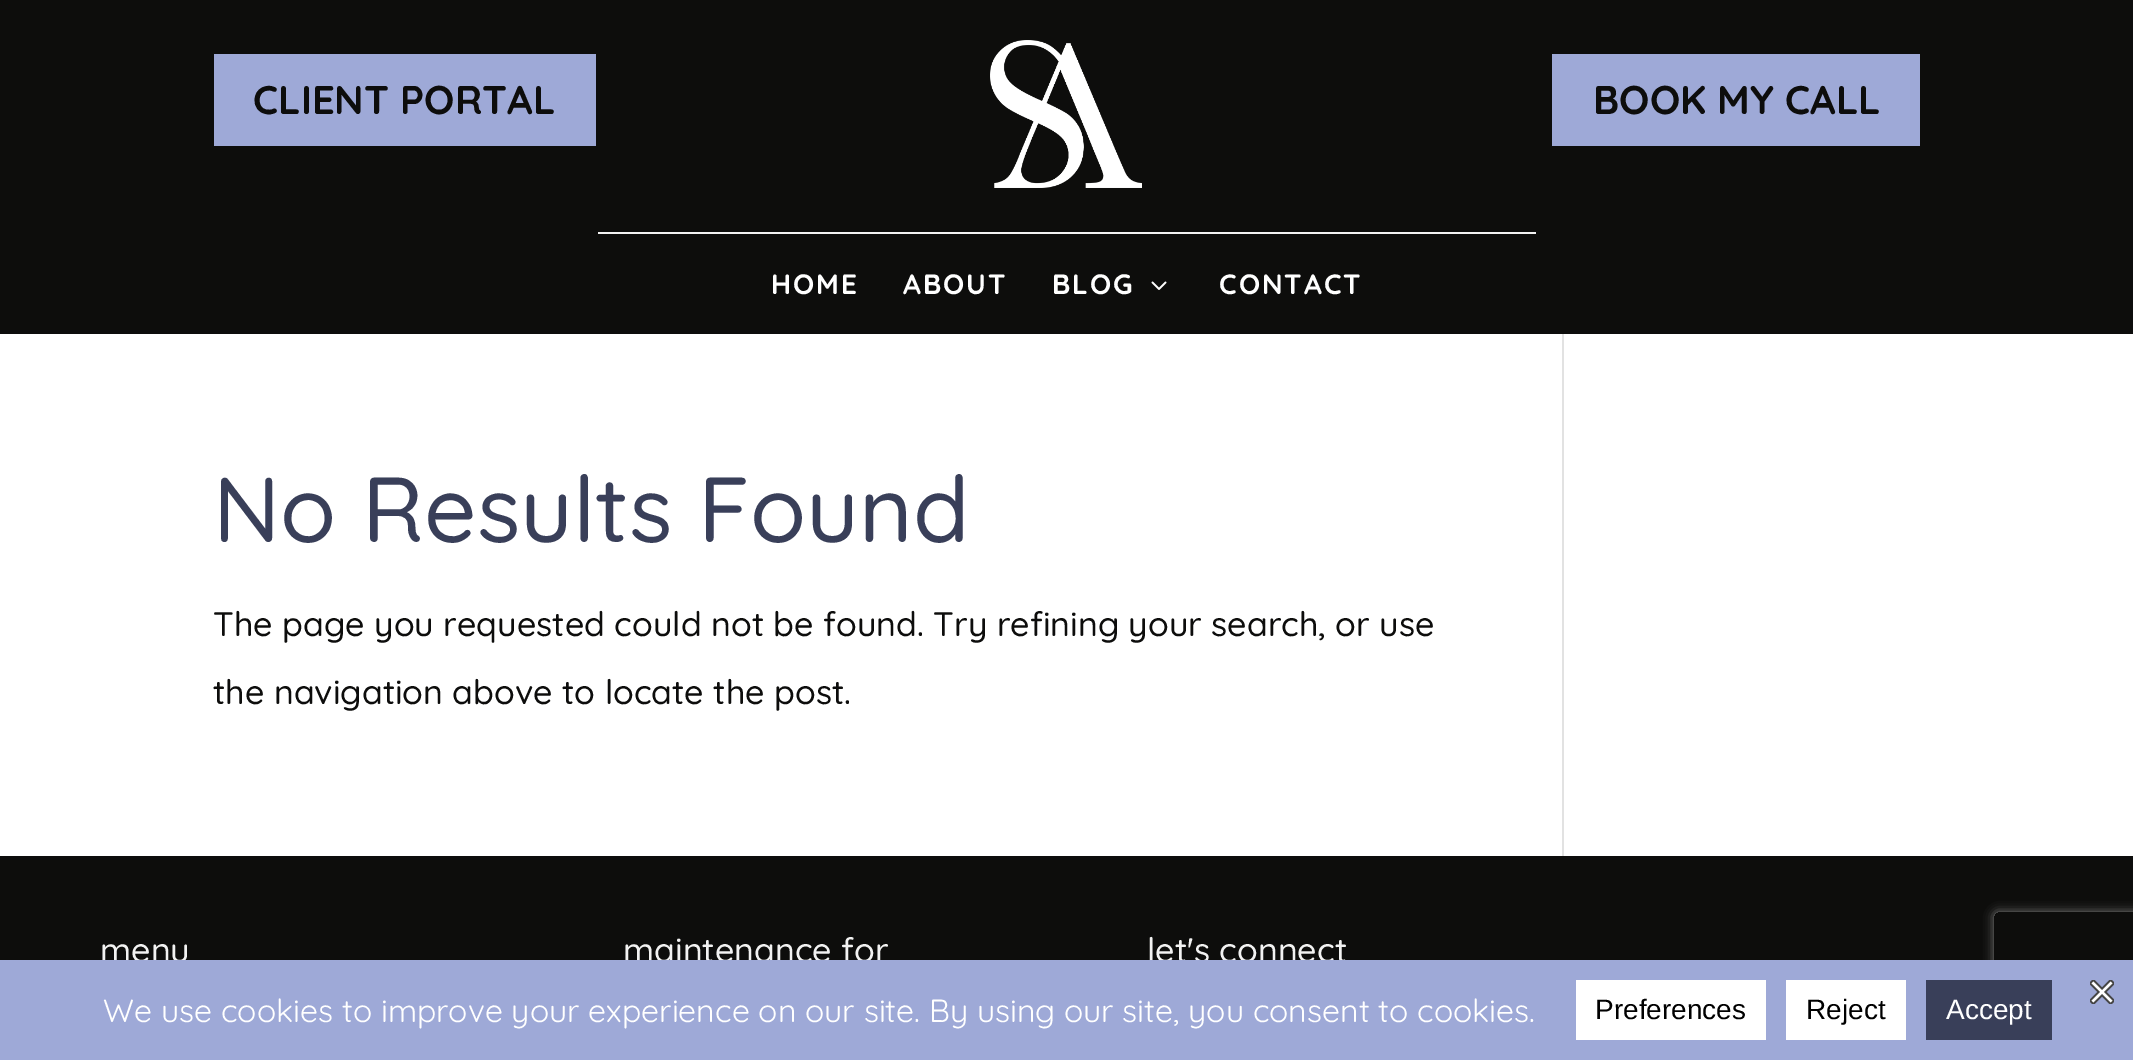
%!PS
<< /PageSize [2133 1060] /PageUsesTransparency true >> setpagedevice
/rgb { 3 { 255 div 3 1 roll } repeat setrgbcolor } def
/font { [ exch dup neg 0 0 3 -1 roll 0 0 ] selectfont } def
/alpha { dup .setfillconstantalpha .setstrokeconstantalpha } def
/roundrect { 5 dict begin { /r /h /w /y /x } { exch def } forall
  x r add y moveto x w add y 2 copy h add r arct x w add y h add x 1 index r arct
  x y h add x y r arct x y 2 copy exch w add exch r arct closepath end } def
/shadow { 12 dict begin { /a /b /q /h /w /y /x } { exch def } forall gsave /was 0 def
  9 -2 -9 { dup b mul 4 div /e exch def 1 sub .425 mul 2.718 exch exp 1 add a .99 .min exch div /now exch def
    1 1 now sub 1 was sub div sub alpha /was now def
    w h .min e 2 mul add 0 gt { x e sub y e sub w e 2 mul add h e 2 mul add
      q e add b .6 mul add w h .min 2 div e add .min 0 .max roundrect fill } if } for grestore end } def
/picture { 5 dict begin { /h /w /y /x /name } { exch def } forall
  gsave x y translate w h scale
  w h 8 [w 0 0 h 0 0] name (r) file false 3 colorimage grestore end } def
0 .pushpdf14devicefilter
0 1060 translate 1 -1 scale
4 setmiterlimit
255 255 255 rgb
0 0 2133 1060 rectfill
13 13 12 rgb
0 0 2133 334 rectfill
158 169 215 rgb
214 54 382 92 rectfill
(img/1.rgb) 990 40 152 148 picture
1552 54 368 92 rectfill
242 242 242 rgb
598 232 938 2 rectfill
(img/2.rgb) 1151 281 16 9 picture
226 226 226 rgb
1562 334 2 522 rectfill
13 13 12 rgb
0 856 2133 104 rectfill
gsave
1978 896 moveto 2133 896 lineto 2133 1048 lineto 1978 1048 lineto closepath 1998 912 moveto 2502 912 lineto 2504 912 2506 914 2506 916 curveto 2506 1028 lineto 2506 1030 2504 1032 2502 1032 curveto 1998 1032 lineto 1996 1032 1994 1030 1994 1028 curveto 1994 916 lineto 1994 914 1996 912 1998 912 curveto closepath eoclip newpath
128 128 128 rgb
1994 912 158 120 4 5 1 shadow
grestore
/Quicksand-Bold 40 font
253 114 moveto (CLIENT PORTAL) show
1593 114 moveto (BOOK MY CALL) show
/Quicksand-Bold 28 font
255 255 255 rgb
771 294 moveto 2 0 (HOME) ashow
903 294 moveto 2 0 (ABOUT) ashow
1052 294 moveto 2 0 (BLOG) ashow
1219 294 moveto 2 0 (CONTACT) ashow
/Quicksand-Medium 92 font
57 63 89 rgb
213 542 moveto (No Results Found) show
/Quicksand-Medium 34 font
13 13 12 rgb
213 636 moveto (The page you requested could not be found. Try refining your search, or use) show
213 704 moveto (the navigation above to locate the post.) show
242 242 242 rgb
[
  [(menu) 100 962]
  [(maintenance for) 623 962]
  [(let's connect) 1147 962]
] { aload pop moveto show } forall
158 169 215 rgb
0 960 2133 100 rectfill
(img/3.rgb) 2090 980 24 24 picture
/Quicksand-Regular 32 font
255 255 255 rgb
103 1022 moveto (We use cookies to improve your experience on our site. By using our site, you consent to cookies.) show
1576 980 190 60 rectfill
/LiberationSans-Regular 28 font
0 0 0 rgb
1595 1019 moveto (Preferences) show
255 255 255 rgb
1786 980 120 60 rectfill
0 0 0 rgb
1806 1019 moveto (Reject) show
57 63 89 rgb
1926 980 126 60 rectfill
255 255 255 rgb
1946 1019 moveto (Accept) show
.poppdf14devicefilter showpage
